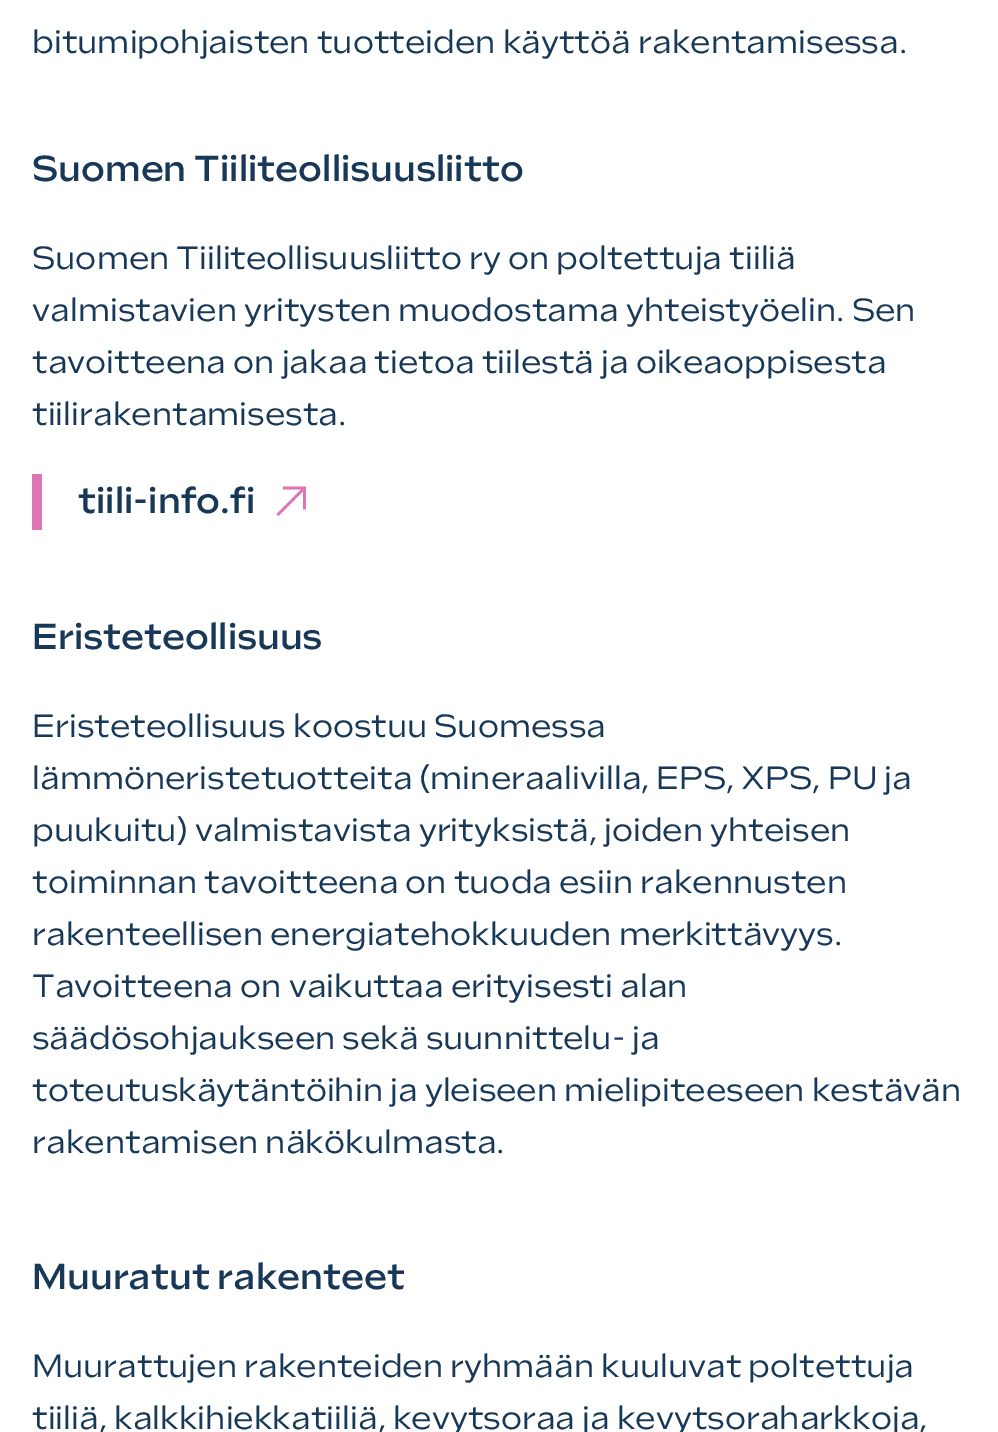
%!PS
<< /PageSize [998 1432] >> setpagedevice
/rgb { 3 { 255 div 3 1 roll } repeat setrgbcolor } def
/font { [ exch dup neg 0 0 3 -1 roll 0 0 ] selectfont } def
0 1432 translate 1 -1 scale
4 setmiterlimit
255 255 255 rgb
0 0 998 1432 rectfill
222 118 182 rgb
32 474 10 56 rectfill
306 486.5 moveto 306 509.5 lineto 303 509.5 lineto 303 491.5 lineto 278.5 516 lineto 276.5 514 lineto 301 489.5 lineto 283 489.5 lineto 283 486.5 lineto closepath fill
/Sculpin-Regular 32 font
24 56 88 rgb
32 53 moveto (bitumipohjaisten tuotteiden käyttöä rakentamisessa.) show
/Sculpin-Medium 36 font
32 181 moveto (Suomen Tiiliteollisuusliitto) show
/Sculpin-Regular 32 font
[
  [(Suomen Tiiliteollisuusliitto ry on poltettuja tiiliä) 32 269]
  [(valmistavien yritysten muodostama yhteistyöelin. Sen) 32 321]
  [(tavoitteena on jakaa tietoa tiilestä ja oikeaoppisesta) 32 373]
  [(tiilirakentamisesta.) 32 425]
] { aload pop moveto show } forall
/Sculpin-Medium 36 font
78 513 moveto (tiili-info.fi) show
32 649 moveto (Eristeteollisuus) show
/Sculpin-Regular 32 font
[
  [(Eristeteollisuus koostuu Suomessa) 32 737]
  [(lämmöneristetuotteita \(mineraalivilla, EPS, XPS, PU ja) 32 789]
  [(puukuitu\) valmistavista yrityksistä, joiden yhteisen) 32 841]
  [(toiminnan tavoitteena on tuoda esiin rakennusten) 32 893]
  [(rakenteellisen energiatehokkuuden merkittävyys.) 32 945]
  [(Tavoitteena on vaikuttaa erityisesti alan) 32 997]
  [(säädösohjaukseen sekä suunnittelu- ja) 32 1049]
  [(toteutuskäytäntöihin ja yleiseen mielipiteeseen kestävän) 32 1101]
  [(rakentamisen näkökulmasta.) 32 1153]
] { aload pop moveto show } forall
/Sculpin-Medium 36 font
32 1289 moveto (Muuratut rakenteet) show
/Sculpin-Regular 32 font
32 1377 moveto (Muurattujen rakenteiden ryhmään kuuluvat poltettuja) show
32 1429 moveto (tiiliä, kalkkihiekkatiiliä, kevytsoraa ja kevytsoraharkkoja,) show
showpage
